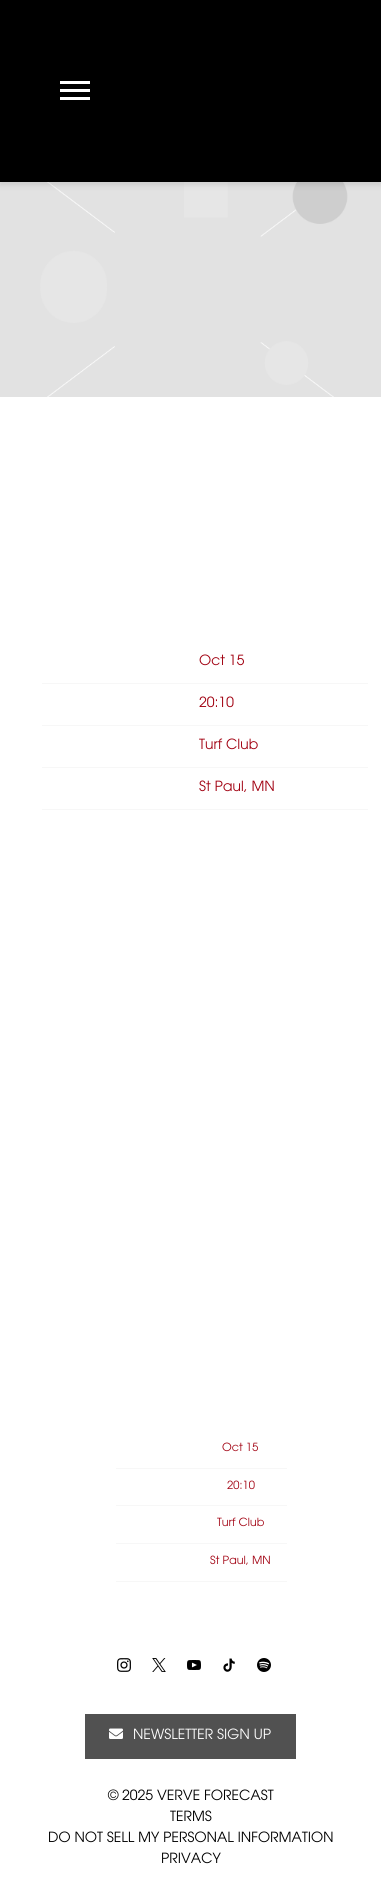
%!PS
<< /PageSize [381 1899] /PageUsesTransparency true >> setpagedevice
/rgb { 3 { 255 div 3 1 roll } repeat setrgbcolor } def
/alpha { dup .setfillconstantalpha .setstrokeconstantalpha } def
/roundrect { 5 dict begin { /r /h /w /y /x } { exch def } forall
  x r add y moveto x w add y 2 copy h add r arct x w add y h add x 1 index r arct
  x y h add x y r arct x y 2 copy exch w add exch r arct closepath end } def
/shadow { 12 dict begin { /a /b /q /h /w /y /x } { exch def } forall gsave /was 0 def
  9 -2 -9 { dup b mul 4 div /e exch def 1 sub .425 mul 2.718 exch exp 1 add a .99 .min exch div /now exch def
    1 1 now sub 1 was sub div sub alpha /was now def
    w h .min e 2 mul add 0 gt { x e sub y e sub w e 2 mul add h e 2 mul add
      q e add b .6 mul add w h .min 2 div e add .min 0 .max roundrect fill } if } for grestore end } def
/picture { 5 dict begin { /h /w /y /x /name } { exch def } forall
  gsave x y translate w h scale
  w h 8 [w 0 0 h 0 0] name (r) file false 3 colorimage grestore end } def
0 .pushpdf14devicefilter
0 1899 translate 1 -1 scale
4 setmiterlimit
255 255 255 rgb
0 0 381 1899 rectfill
(img/1.rgb) 0 182 381 215 picture
0 0 0 rgb
0 3 381 182 0 2.5 0.1 shadow
[
  [0 0 381 182 0 0 0]
  [60 81 30 3 255 255 255]
  [60 89 30 3 255 255 255]
  [60 97 30 3 255 255 255]
  [42 683 326 1 247 247 247]
] { aload pop rgb rectfill } forall
(img/2.rgb) 199 654 45 12 picture
42 725 326 1 rectfill
(img/3.rgb) 199 696 35 12 picture
42 767 326 1 rectfill
(img/4.rgb) 199 738 59 12 picture
42 809 326 1 rectfill
(img/5.rgb) 199 780 75 12 picture
116 1468 171 1 rectfill
(img/6.rgb) 222 1442 36 10 picture
116 1505 171 1 rectfill
(img/7.rgb) 227 1480 28 10 picture
116 1543 171 1 rectfill
(img/8.rgb) 217 1517 47 10 picture
116 1581 171 1 rectfill
(img/9.rgb) 210 1555 60 10 picture
(img/10.rgb) 117 1658 14 14 picture
(img/11.rgb) 152 1658 14 14 picture
(img/12.rgb) 187 1660 14 10 picture
(img/13.rgb) 223 1658 12 14 picture
(img/14.rgb) 257 1658 14 14 picture
81 81 81 rgb
85 1714 211 45 rectfill
(img/15.rgb) 109 1728 14 11 picture
(img/16.rgb) 134 1728 137 12 picture
(img/17.rgb) 107 1789 12 12 picture
(img/18.rgb) 122 1789 31 12 picture
(img/19.rgb) 157 1789 117 12 picture
(img/20.rgb) 170 1810 42 12 picture
(img/21.rgb) 49 1831 284 12 picture
(img/22.rgb) 162 1852 59 12 picture
.poppdf14devicefilter showpage
